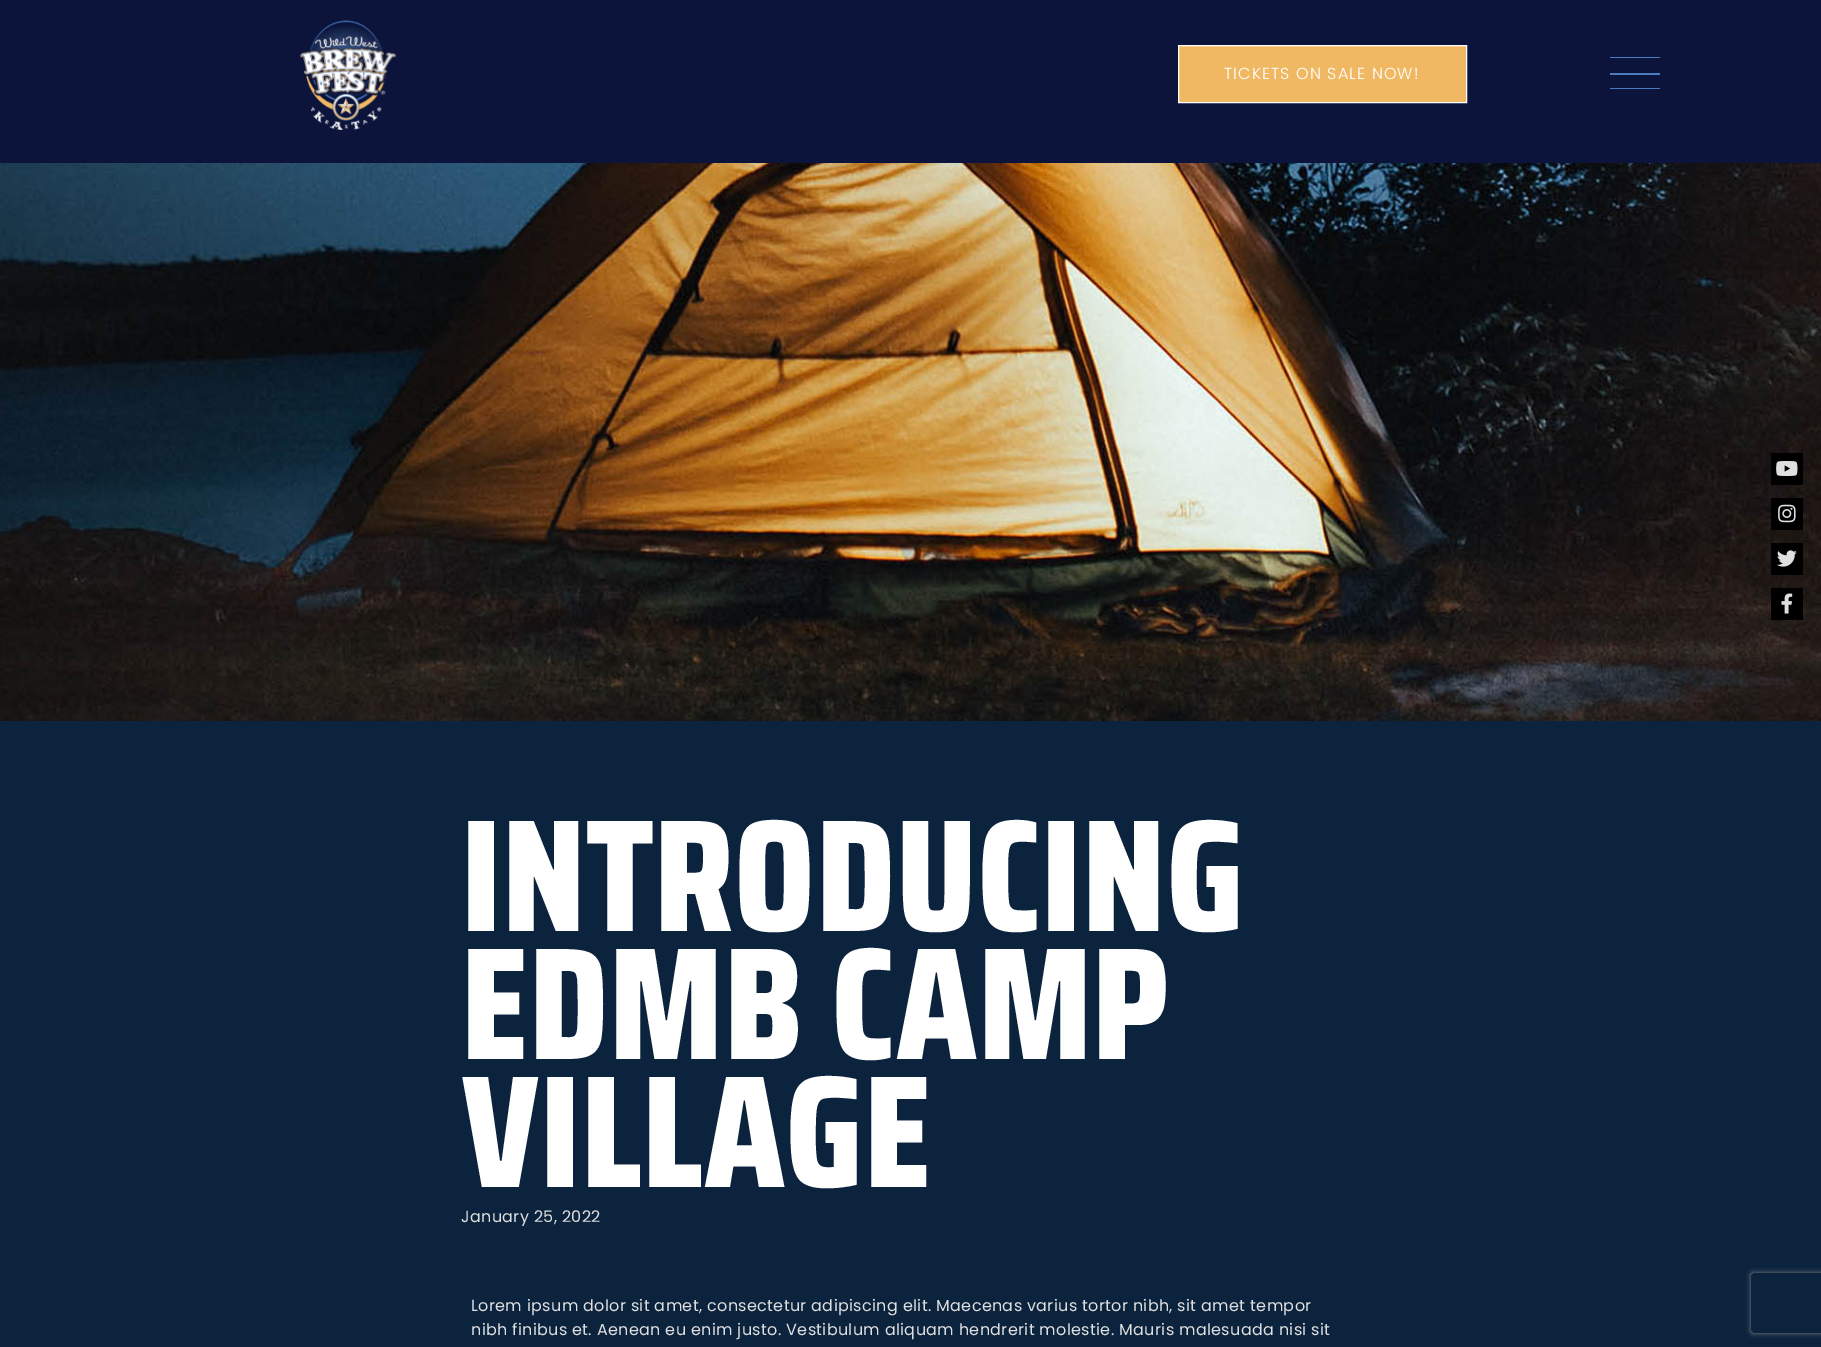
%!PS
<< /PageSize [1821 1347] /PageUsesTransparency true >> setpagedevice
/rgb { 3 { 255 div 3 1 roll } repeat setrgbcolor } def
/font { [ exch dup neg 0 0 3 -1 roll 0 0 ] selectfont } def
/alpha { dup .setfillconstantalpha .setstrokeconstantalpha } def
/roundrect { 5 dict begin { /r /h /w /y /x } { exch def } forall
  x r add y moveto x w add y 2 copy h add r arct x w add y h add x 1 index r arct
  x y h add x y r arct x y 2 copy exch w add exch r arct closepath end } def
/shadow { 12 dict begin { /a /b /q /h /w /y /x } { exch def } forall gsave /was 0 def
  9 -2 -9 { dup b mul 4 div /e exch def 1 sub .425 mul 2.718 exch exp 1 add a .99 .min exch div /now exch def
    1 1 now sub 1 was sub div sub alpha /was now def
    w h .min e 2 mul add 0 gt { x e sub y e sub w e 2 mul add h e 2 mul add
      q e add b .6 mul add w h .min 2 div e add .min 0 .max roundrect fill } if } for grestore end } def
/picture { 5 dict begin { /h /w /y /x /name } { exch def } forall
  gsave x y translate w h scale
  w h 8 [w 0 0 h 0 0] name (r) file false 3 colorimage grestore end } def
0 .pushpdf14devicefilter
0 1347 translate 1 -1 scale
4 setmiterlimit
12 35 62 rgb
0 0 1821 1347 rectfill
12 20 59 rgb
0 0 1821 163 rectfill
(img/1.rgb) 300 20 97 110 picture
241 184 99 rgb
1178.5 45.5 moveto 1466.5 45.5 lineto 1466.5 102.5 lineto 1178.5 102.5 lineto closepath gsave fill grestore
255 255 255 rgb
stroke
[
  [1610 88 50 1 75 124 191]
  [1610 73 50 2 75 124 191]
  [1610 57 50 1 75 124 191]
] { aload pop rgb rectfill } forall
(img/2.rgb) 0 163 1821 558 picture
0 0 0 rgb
1771 453 32 32 rectfill
(img/3.rgb) 1776 461 22 15 picture
1771 498 32 32 rectfill
(img/4.rgb) 1778 504 18 19 picture
1771 543 32 32 rectfill
(img/5.rgb) 1777 550 20 17 picture
1771 588 32 32 rectfill
(img/6.rgb) 1781 593 12 21 picture
gsave
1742 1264 moveto 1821 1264 lineto 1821 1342 lineto 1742 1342 lineto closepath 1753 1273 moveto 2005 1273 lineto 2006 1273 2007 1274 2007 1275 curveto 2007 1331 lineto 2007 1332 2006 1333 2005 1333 curveto 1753 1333 lineto 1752 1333 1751 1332 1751 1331 curveto 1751 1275 lineto 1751 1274 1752 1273 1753 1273 curveto closepath eoclip newpath
128 128 128 rgb
1751 1273 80 60 2 2.5 1 shadow
grestore
/Poppins-Light 16 font
255 255 255 rgb
1224 79 moveto 1.1 0 (TICKETS ON SALE NOW!) ashow
/SairaCondensed-ExtraBold 160 font
461 931 moveto 0.35 0 (INTRODUCING) ashow
461 1059 moveto 0.35 0 (EDMB CAMP) ashow
461 1187 moveto 0.35 0 (VILLAGE) ashow
/Poppins-Regular 16 font
223 223 223 rgb
461 1222 moveto 0.35 0 (January 25, 2022) ashow
471 1311 moveto 0.35 0 (Lorem ipsum dolor sit amet, consectetur adipiscing elit. Maecenas varius tortor nibh, sit amet tempor) ashow
471 1335 moveto 0.35 0 (nibh finibus et. Aenean eu enim justo. Vestibulum aliquam hendrerit molestie. Mauris malesuada nisi sit) ashow
.poppdf14devicefilter showpage
